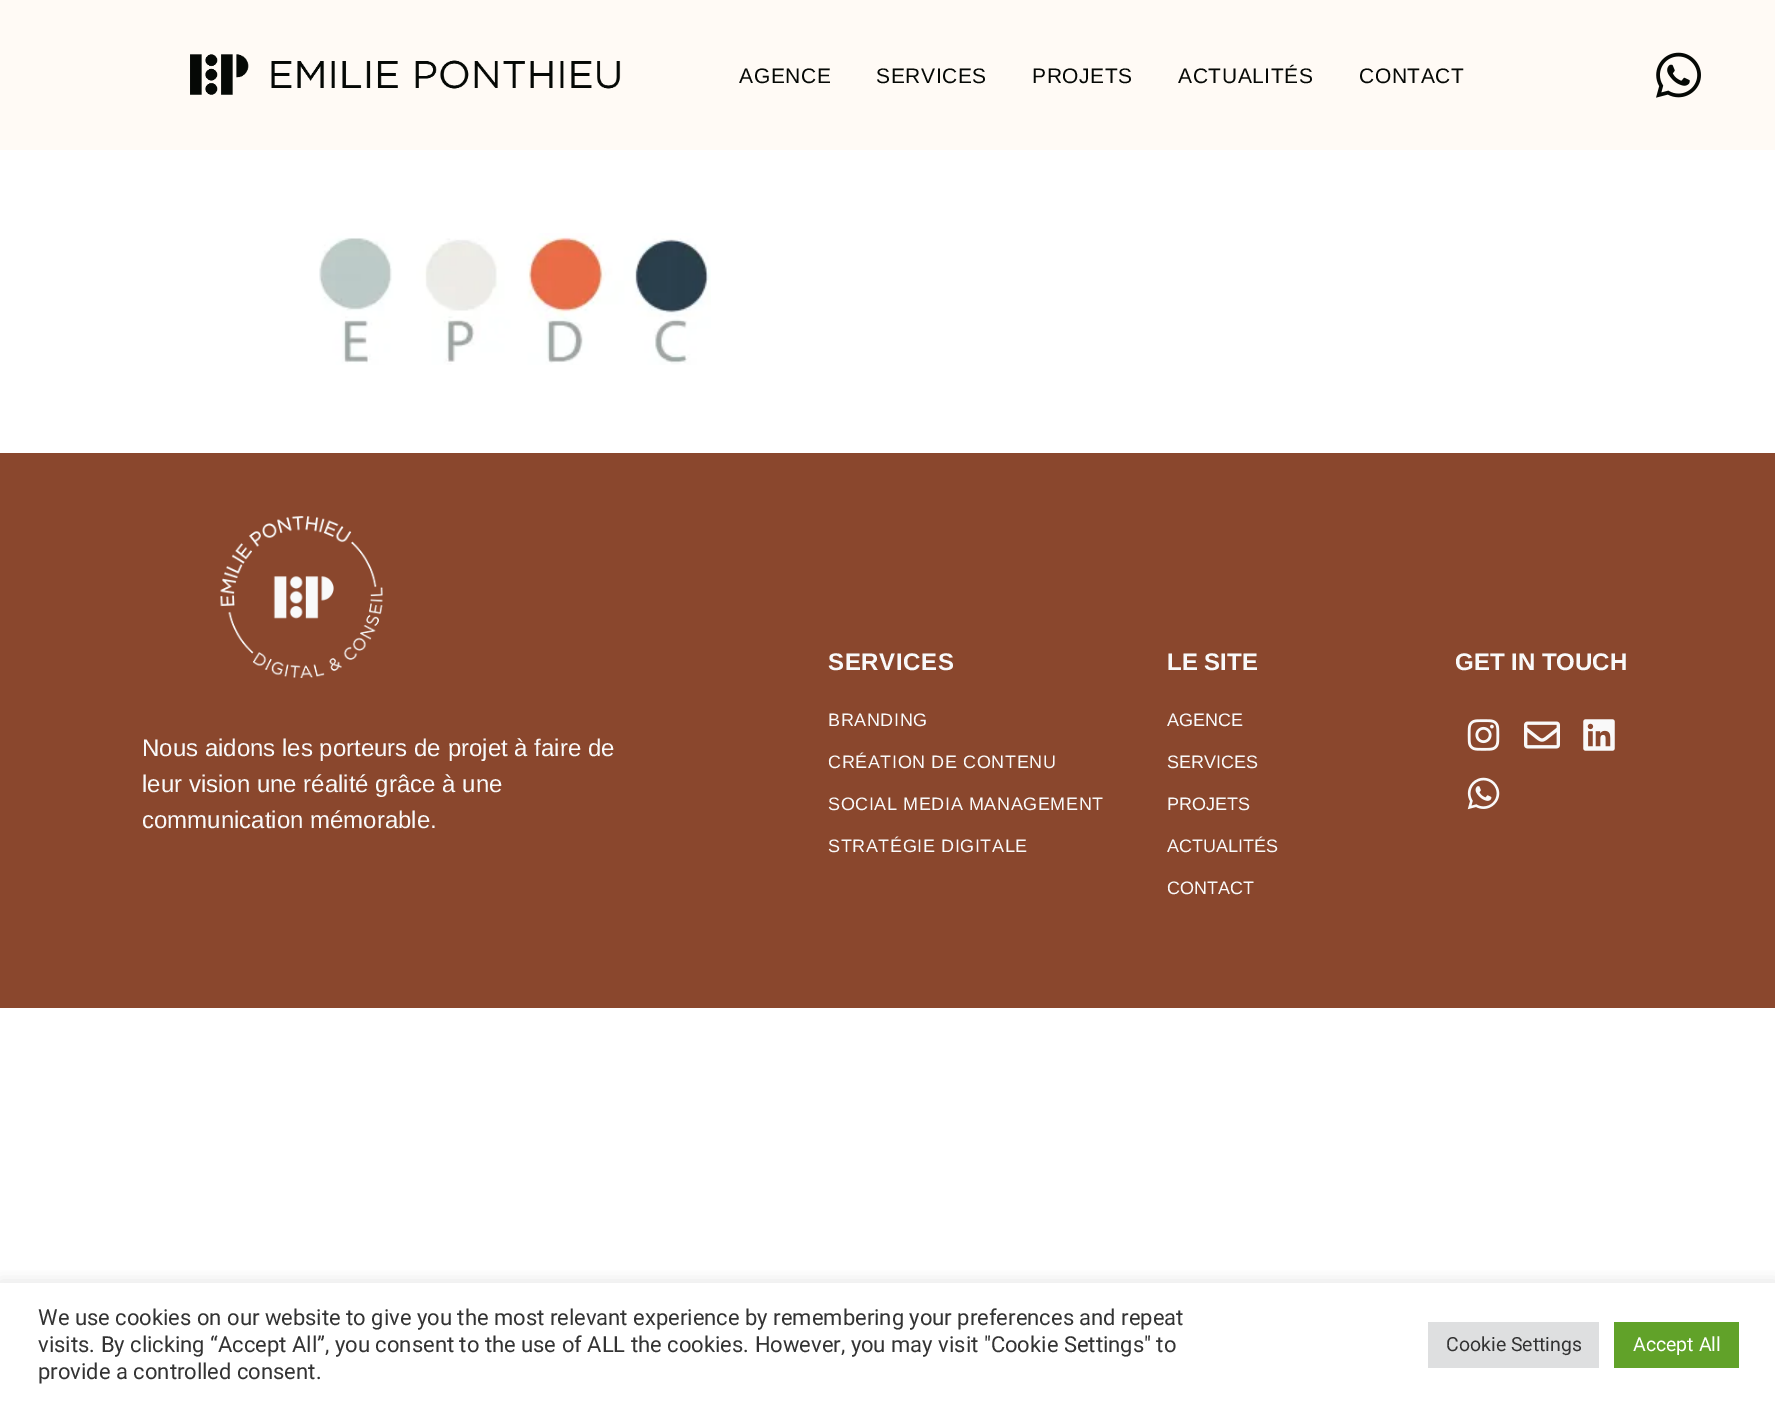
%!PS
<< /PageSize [1775 1405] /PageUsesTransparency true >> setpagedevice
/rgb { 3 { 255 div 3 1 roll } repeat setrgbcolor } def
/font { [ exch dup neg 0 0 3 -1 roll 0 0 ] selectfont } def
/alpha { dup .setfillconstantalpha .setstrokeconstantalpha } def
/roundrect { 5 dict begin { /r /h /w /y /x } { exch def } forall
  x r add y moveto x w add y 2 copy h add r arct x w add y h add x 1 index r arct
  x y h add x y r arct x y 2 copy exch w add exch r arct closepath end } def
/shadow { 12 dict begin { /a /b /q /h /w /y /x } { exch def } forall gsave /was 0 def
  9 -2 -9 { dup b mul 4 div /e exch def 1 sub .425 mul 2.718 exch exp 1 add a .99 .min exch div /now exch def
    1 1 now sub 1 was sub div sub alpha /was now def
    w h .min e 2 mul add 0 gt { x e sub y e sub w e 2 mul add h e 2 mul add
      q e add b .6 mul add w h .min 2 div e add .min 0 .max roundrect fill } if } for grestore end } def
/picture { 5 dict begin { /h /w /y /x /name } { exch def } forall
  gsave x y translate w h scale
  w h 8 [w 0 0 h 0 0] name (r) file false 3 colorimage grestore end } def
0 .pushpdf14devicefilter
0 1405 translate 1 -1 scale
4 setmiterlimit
255 255 255 rgb
0 0 1775 1405 rectfill
255 250 245 rgb
0 0 1775 150 rectfill
(img/1.rgb) 190 54 431 41 picture
(img/2.rgb) 1656 52 45 46 picture
(img/3.rgb) 319 233 392 132 picture
138 71 45 rgb
0 453 1775 555 rectfill
(img/4.rgb) 1467 719 33 32 picture
(img/5.rgb) 1524 721 36 28 picture
(img/6.rgb) 1583 719 32 32 picture
(img/7.rgb) 1467 777 33 33 picture
(img/8.rgb) 220 516 163 162 picture
gsave
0 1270 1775 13 rectclip
172 171 171 rgb
0 1281 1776 123 0 7.5 0.3 shadow
grestore
222 223 224 rgb
1428 1322 171 46 rectfill
97 162 41 rgb
1614 1322 125 46 rectfill
/LiberationSans-Regular 21 font
5 8 5 rgb
739 83 moveto 0.6 0 (AGENCE) ashow
876 83 moveto 0.6 0 (SERVICES) ashow
1032 83 moveto 0.6 0 (PROJETS) ashow
1178 83 moveto 0.6 0 (ACTUALITÉS) ashow
1359 83 moveto 0.6 0 (CONTACT) ashow
/LiberationSans-Bold 24 font
249 249 249 rgb
828 670 moveto 0.6 0 (SERVICES) ashow
/LiberationSans-Regular 18 font
828 726 moveto 0.6 0 (BRANDING) ashow
828 768 moveto 0.6 0 (CRÉATION DE CONTENU) ashow
828 810 moveto 0.6 0 (SOCIAL MEDIA MANAGEMENT) ashow
828 852 moveto 0.6 0 (STRATÉGIE DIGITALE) ashow
/LiberationSans-Bold 24 font
1167 670 moveto (LE SITE) show
/LiberationSans-Regular 18 font
[
  [(AGENCE) 1167 726]
  [(SERVICES) 1167 768]
  [(PROJETS) 1167 810]
  [(ACTUALITÉS) 1167 852]
  [(CONTACT) 1167 894]
] { aload pop moveto show } forall
/LiberationSans-Bold 24 font
1455 670 moveto (GET IN TOUCH) show
/LiberationSans-Regular 24 font
[
  [(Nous aidons les porteurs de projet à faire de) 142 756]
  [(leur vision une réalité grâce à une) 142 792]
  [(communication mémorable.) 142 828]
] { aload pop moveto show } forall
/Roboto-Regular 22 font
51 51 51 rgb
[
  [(We use cookies on our website to give you the most relevant experience by remembering your preferences and repeat) 38 1325]
  [(visits. By clicking “Accept All”, you consent to the use of ALL the cookies. However, you may visit "Cookie Settings" to) 38 1352]
  [(provide a controlled consent.) 38 1379]
] { aload pop moveto show } forall
/Roboto-Regular 19.5 font
1446 1351 moveto (Cookie Settings) show
255 255 255 rgb
1633 1351 moveto (Accept All) show
.poppdf14devicefilter showpage
